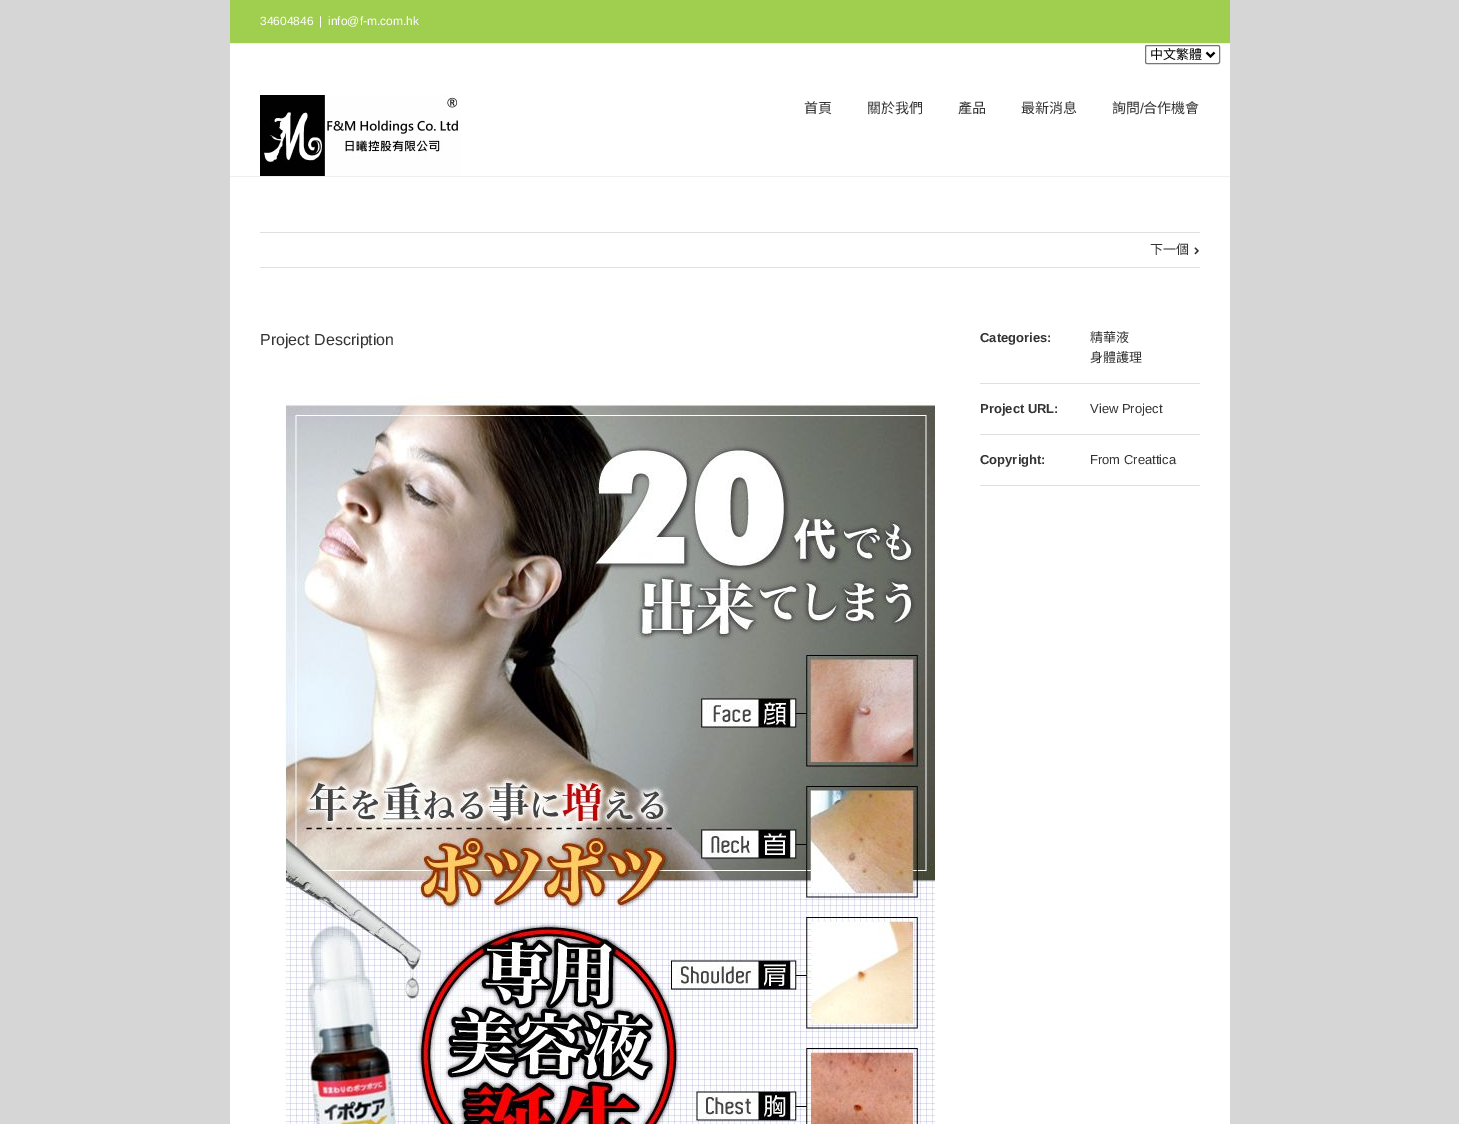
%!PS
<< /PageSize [1459 1124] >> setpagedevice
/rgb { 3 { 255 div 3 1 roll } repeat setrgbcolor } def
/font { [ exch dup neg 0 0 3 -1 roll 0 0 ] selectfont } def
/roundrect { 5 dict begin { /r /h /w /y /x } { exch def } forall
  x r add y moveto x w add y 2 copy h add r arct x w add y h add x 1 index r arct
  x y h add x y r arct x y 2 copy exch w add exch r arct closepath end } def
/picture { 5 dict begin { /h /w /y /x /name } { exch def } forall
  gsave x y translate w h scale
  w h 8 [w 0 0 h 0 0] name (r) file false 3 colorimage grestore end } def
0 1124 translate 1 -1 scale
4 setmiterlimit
215 214 214 rgb
0 0 1459 1124 rectfill
[
  [230 44 1000 1080 255 255 255]
  [230 0 1000 43 160 206 78]
  [230 43 1000 1 239 239 239]
  [230 176 1000 1 239 239 239]
] { aload pop rgb rectfill } forall
118 118 118 rgb
1145.5 45.5 74 18 1.5 roundrect stroke
0 0 0 rgb
2 setlinewidth
1206.5 52.5 moveto 1210.5 56.5 lineto 1214.5 52.5 lineto stroke
(img/1.rgb) 260 95 200 81 picture
224 222 222 rgb
260 232 940 1 rectfill
260 267 940 1 rectfill
(img/2.rgb) 1194 247 5 8 picture
(img/3.rgb) 285 396 650 728 picture
[
  [980 383 220 1 224 222 222]
  [980 434 220 1 224 222 222]
  [980 485 220 1 224 222 222]
] { aload pop rgb rectfill } forall
/LiberationSans-Regular 12 font
255 255 255 rgb
[
  [(34604846) 260 25]
  [(|) 319 25]
  [(info@f-m.com.hk) 328 25]
] { aload pop moveto show } forall
/NotoSansCJKTC-Regular 13 font
0 0 0 rgb
1150 59 moveto (中文繁體) show
/NotoSansCJKTC-Regular 14 font
51 51 51 rgb
[
  [(首頁) 804 113]
  [(關於我們) 867 113]
  [(產品) 958 113]
  [(最新消息) 1021 113]
  [(詢問) 1112 113]
] { aload pop moveto show } forall
/LiberationSans-Regular 14 font
1140 113 moveto (/) show
/NotoSansCJKTC-Regular 14 font
1143 113 moveto (合作機會) show
/NotoSansCJKTC-Regular 13 font
1150 254 moveto (下一個) show
/LiberationSans-Regular 16 font
260 345 moveto (Project Description) show
/LiberationSans-Bold 13 font
980 342 moveto (Categories:) show
/NotoSansCJKTC-Regular 13 font
1090 342 moveto (精華液) show
1090 362 moveto (身體護理) show
/LiberationSans-Bold 13 font
980 413 moveto (Project URL:) show
/LiberationSans-Regular 13 font
1090 413 moveto (View Project) show
/LiberationSans-Bold 13 font
980 464 moveto (Copyright:) show
/LiberationSans-Regular 13 font
1090 464 moveto (From Creattica) show
showpage
